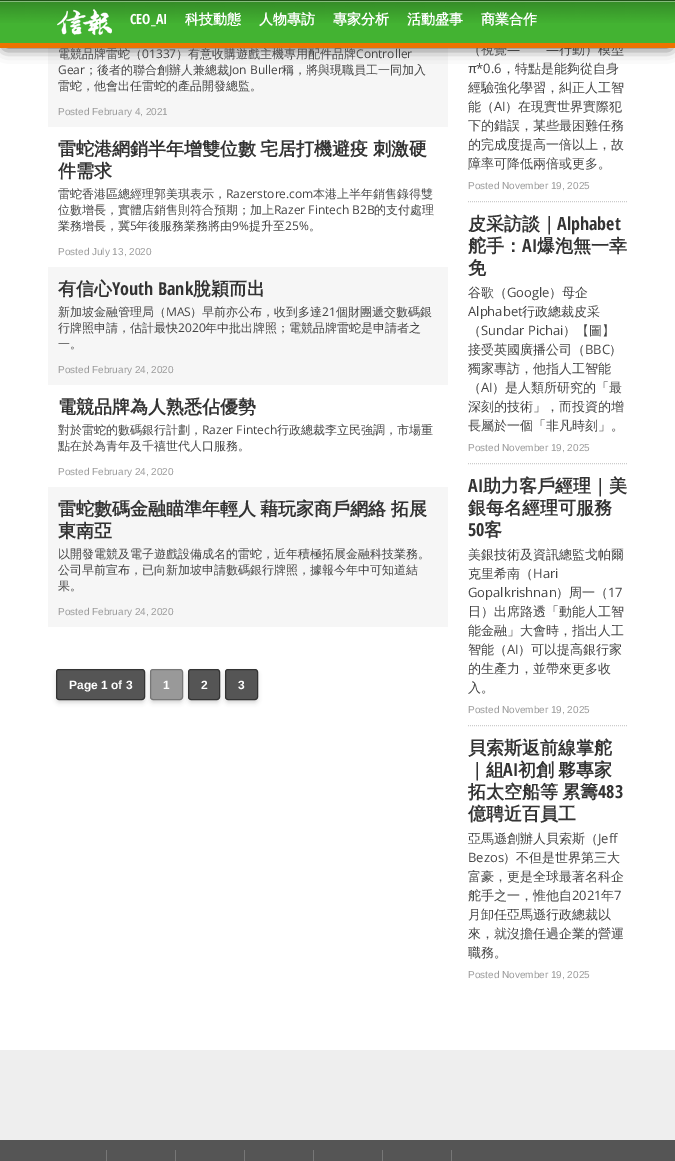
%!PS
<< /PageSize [675 1161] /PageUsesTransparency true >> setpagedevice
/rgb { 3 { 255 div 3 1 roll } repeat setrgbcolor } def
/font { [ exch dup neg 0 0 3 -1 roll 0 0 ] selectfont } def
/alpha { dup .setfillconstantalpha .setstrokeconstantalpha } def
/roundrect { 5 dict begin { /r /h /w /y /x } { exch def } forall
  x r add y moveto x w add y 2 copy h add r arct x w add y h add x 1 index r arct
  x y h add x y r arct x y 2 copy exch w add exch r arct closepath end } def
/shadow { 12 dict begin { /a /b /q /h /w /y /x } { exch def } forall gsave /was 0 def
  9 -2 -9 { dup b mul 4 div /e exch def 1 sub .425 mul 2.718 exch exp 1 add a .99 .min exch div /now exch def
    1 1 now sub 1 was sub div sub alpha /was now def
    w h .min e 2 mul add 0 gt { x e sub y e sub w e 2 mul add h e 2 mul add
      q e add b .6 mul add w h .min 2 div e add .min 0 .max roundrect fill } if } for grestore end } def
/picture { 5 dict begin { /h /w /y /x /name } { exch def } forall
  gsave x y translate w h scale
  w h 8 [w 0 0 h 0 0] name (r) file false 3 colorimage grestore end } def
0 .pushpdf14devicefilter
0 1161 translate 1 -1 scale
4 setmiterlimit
255 255 255 rgb
0 0 675 1161 rectfill
246 246 246 rgb
48 48 400 79 rectfill
85 85 85 rgb
5 9 665 38 0 7.5 1 shadow
5 1 665 38 0 7.5 1 shadow
67 179 50 rgb
0 0 675 43 rectfill
(img/1.rgb) 0 0 675 23 picture
(img/2.rgb) 57 9 55 26 picture
246 246 246 rgb
48 267 400 118 rectfill
48 487 400 140 rectfill
204 204 204 rgb
57 673 87 29 2 2.5 1 shadow
85 85 85 rgb
56.5 669.5 88 30 2.5 roundrect gsave fill grestore
51 51 51 rgb
stroke
204 204 204 rgb
151 673 31 29 2 2.5 1 shadow
153 153 153 rgb
150.5 669.5 32 30 2.5 roundrect gsave fill grestore
119 119 119 rgb
stroke
204 204 204 rgb
189 673 30 29 2 2.5 1 shadow
85 85 85 rgb
188.5 669.5 31 30 2.5 roundrect gsave fill grestore
51 51 51 rgb
stroke
204 204 204 rgb
226 673 31 29 2 2.5 1 shadow
85 85 85 rgb
225.5 669.5 32 30 2.5 roundrect gsave fill grestore
51 51 51 rgb
stroke
204 204 204 rgb
[1 1] 0 setdash
468 201.5 moveto 628 201.5 lineto stroke
468 463.5 moveto 628 463.5 lineto stroke
468 725.5 moveto 628 725.5 lineto stroke
[
  [0 1050 675 90 238 238 238]
  [0 1140 675 21 85 85 85]
  [106 1150 1 11 119 119 119]
  [175 1150 1 11 119 119 119]
  [244 1150 1 11 119 119 119]
  [313 1150 1 11 119 119 119]
  [382 1150 1 11 119 119 119]
  [451 1150 1 11 119 119 119]
] { aload pop rgb rectfill } forall
/OpenSansCondensed-Bold 14 font
255 255 255 rgb
130 24 moveto (CEO_AI) show
/WenQuanYiZenHei-Bold 14 font
[
  [(科技動態) 185 24]
  [(人物專訪) 259 24]
  [(專家分析) 333 24]
  [(活動盛事) 407 24]
  [(商業合作) 481 24]
] { aload pop moveto show } forall
/WenQuanYiZenHei-Medium 12 font
68 68 68 rgb
58 58 moveto (電競品牌雷蛇（) show
/OpenSans-Regular 12 font
142 58 moveto (01337) show
/WenQuanYiZenHei-Medium 12 font
176 58 moveto (）有意收購遊戲主機專用配件品牌) show
/OpenSans-Regular 12 font
356 58 moveto (Controller) show
58 74 moveto (Gear) show
/WenQuanYiZenHei-Medium 12 font
85 74 moveto (；後者的聯合創辦人兼總裁) show
/OpenSans-Regular 12 font
229 74 moveto (Jon Buller) show
/WenQuanYiZenHei-Medium 12 font
282 74 moveto (稱，將與現職員工一同加入) show
58 90 moveto (雷蛇，他會出任雷蛇的產品開發總監。) show
/LiberationSans-Regular 10 font
153 153 153 rgb
58 115 moveto (Posted February 4, 2021) show
/WenQuanYiZenHei-Bold 18 font
51 51 51 rgb
58 155 moveto -1 0 32 (雷蛇港網銷半年增雙位數 宅居打機避疫 刺激硬) widthshow
58 177 moveto (件需求) show
/WenQuanYiZenHei-Medium 12 font
68 68 68 rgb
58 198 moveto (雷蛇香港區總經理郭美琪表示，) show
/OpenSans-Regular 12 font
226 198 moveto (Razerstore.com) show
/WenQuanYiZenHei-Medium 12 font
313 198 moveto (本港上半年銷售錄得雙) show
58 214 moveto (位數增長，實體店銷售則符合預期；加上) show
/OpenSans-Regular 12 font
274 214 moveto (Razer Fintech B2B) show
/WenQuanYiZenHei-Medium 12 font
374 214 moveto (的支付處理) show
58 230 moveto (業務增長，冀) show
/OpenSans-Regular 12 font
130 230 moveto (5) show
/WenQuanYiZenHei-Medium 12 font
136 230 moveto (年後服務業務將由) show
/OpenSans-Regular 12 font
232 230 moveto (9%) show
/WenQuanYiZenHei-Medium 12 font
249 230 moveto (提升至) show
/OpenSans-Regular 12 font
285 230 moveto (25%) show
/WenQuanYiZenHei-Medium 12 font
309 230 moveto (。) show
/LiberationSans-Regular 10 font
153 153 153 rgb
58 255 moveto (Posted July 13, 2020) show
/WenQuanYiZenHei-Bold 18 font
51 51 51 rgb
58 295 moveto (有信心) show
/OpenSansCondensed-Bold 18 font
112 295 moveto (Youth Bank) show
/WenQuanYiZenHei-Bold 18 font
193 295 moveto (脫穎而出) show
/WenQuanYiZenHei-Medium 12 font
68 68 68 rgb
58 316 moveto (新加坡金融管理局（) show
/OpenSans-Regular 12 font
166 316 moveto (MAS) show
/WenQuanYiZenHei-Medium 12 font
190 316 moveto (）早前亦公布，收到多達) show
/OpenSans-Regular 12 font
322 316 moveto (21) show
/WenQuanYiZenHei-Medium 12 font
336 316 moveto (個財團遞交數碼銀) show
58 332 moveto (行牌照申請，估計最快) show
/OpenSans-Regular 12 font
178 332 moveto (2020) show
/WenQuanYiZenHei-Medium 12 font
205 332 moveto (年中批出牌照；電競品牌雷蛇是申請者之) show
58 348 moveto (一。) show
/LiberationSans-Regular 10 font
153 153 153 rgb
58 373 moveto (Posted February 24, 2020) show
/WenQuanYiZenHei-Bold 18 font
51 51 51 rgb
58 413 moveto (電競品牌為人熟悉佔優勢) show
/WenQuanYiZenHei-Medium 12 font
68 68 68 rgb
58 434 moveto (對於雷蛇的數碼銀行計劃，) show
/OpenSans-Regular 12 font
202 434 moveto (Razer Fintech) show
/WenQuanYiZenHei-Medium 12 font
277 434 moveto (行政總裁李立民強調，市場重) show
58 450 moveto (點在於為青年及千禧世代人口服務。) show
/LiberationSans-Regular 10 font
153 153 153 rgb
58 475 moveto (Posted February 24, 2020) show
/WenQuanYiZenHei-Bold 18 font
51 51 51 rgb
58 515 moveto -1 0 32 (雷蛇數碼金融瞄準年輕人 藉玩家商戶網絡 拓展) widthshow
58 537 moveto (東南亞) show
/WenQuanYiZenHei-Medium 12 font
68 68 68 rgb
[
  [(以開發電競及電子遊戲設備成名的雷蛇，近年積極拓展金融科技業務。) 58 558]
  [(公司早前宣布，已向新加坡申請數碼銀行牌照，據報今年中可知道結) 58 574]
  [(果。) 58 590]
] { aload pop moveto show } forall
/LiberationSans-Regular 10 font
153 153 153 rgb
58 615 moveto (Posted February 24, 2020) show
/LiberationSans-Bold 12 font
255 255 255 rgb
[
  [(Page 1 of 3) 69 689]
  [(1) 163 689]
  [(2) 201 689]
  [(3) 238 689]
] { aload pop moveto show } forall
/WenQuanYiZenHei-Medium 13 font
68 68 68 rgb
468 54 moveto (（視覺) show
/OpenSans-Regular 13 font
507 54 moveto (—) show
546 54 moveto (—) show
/WenQuanYiZenHei-Medium 13 font
559 54 moveto (行動）模型) show
237 115 0 rgb
0 43 675 5 rectfill
/LiberationSans-Regular 13 font
68 68 68 rgb
468 73 moveto (π) show
/OpenSans-Regular 13 font
476 73 moveto (*0.6) show
/WenQuanYiZenHei-Medium 13 font
[
  [(，特點是能夠從自身) 502 73]
  [(經驗強化學習，糾正人工智) 468 92]
  [(能（) 468 111]
] { aload pop moveto show } forall
/OpenSans-Regular 13 font
494 111 moveto (AI) show
/WenQuanYiZenHei-Medium 13 font
[
  [(）在現實世界實際犯) 505 111]
  [(下的錯誤，某些最困難任務) 468 130]
  [(的完成度提高一倍以上，故) 468 149]
  [(障率可降低兩倍或更多。) 468 168]
] { aload pop moveto show } forall
/LiberationSans-Regular 10 font
153 153 153 rgb
468 189 moveto (Posted November 19, 2025) show
/WenQuanYiZenHei-Bold 18 font
51 51 51 rgb
468 230 moveto (皮采訪談｜) show
/OpenSansCondensed-Bold 18 font
557 230 moveto (Alphabet) show
/WenQuanYiZenHei-Bold 18 font
468 252 moveto (舵手：) show
/OpenSansCondensed-Bold 18 font
522 252 moveto (AI) show
/WenQuanYiZenHei-Bold 18 font
537 252 moveto (爆泡無一幸) show
468 274 moveto (免) show
/WenQuanYiZenHei-Medium 13 font
68 68 68 rgb
468 297 moveto (谷歌（) show
/OpenSans-Regular 13 font
507 297 moveto (Google) show
/WenQuanYiZenHei-Medium 13 font
549 297 moveto (）母企) show
/OpenSans-Regular 13 font
468 316 moveto (Alphabet) show
/WenQuanYiZenHei-Medium 13 font
522 316 moveto (行政總裁皮采) show
468 335 moveto (（) show
/OpenSans-Regular 13 font
481 335 moveto (Sundar Pichai) show
/WenQuanYiZenHei-Medium 13 font
563 335 moveto (）【圖】) show
468 354 moveto (接受英國廣播公司（) show
/OpenSans-Regular 13 font
585 354 moveto (BBC) show
/WenQuanYiZenHei-Medium 13 font
[
  [(）) 609 354]
  [(獨家專訪，他指人工智能) 468 373]
  [(（) 468 392]
] { aload pop moveto show } forall
/OpenSans-Regular 13 font
481 392 moveto (AI) show
/WenQuanYiZenHei-Medium 13 font
[
  [(）是人類所研究的「最) 492 392]
  [(深刻的技術」，而投資的增) 468 411]
  [(長屬於一個「非凡時刻」。) 468 430]
] { aload pop moveto show } forall
/LiberationSans-Regular 10 font
153 153 153 rgb
468 451 moveto (Posted November 19, 2025) show
/OpenSansCondensed-Bold 18 font
51 51 51 rgb
468 492 moveto (AI) show
/WenQuanYiZenHei-Bold 18 font
483 492 moveto (助力客戶經理｜美) show
468 514 moveto (銀每名經理可服務) show
/OpenSansCondensed-Bold 18 font
468 536 moveto (50) show
/WenQuanYiZenHei-Bold 18 font
484 536 moveto (客) show
/WenQuanYiZenHei-Medium 13 font
68 68 68 rgb
468 559 moveto (美銀技術及資訊總監戈帕爾) show
468 578 moveto (克里希南（) show
/OpenSans-Regular 13 font
533 578 moveto (Hari) show
468 597 moveto (Gopalkrishnan) show
/WenQuanYiZenHei-Medium 13 font
556 597 moveto (）周一（) show
/OpenSans-Regular 13 font
608 597 moveto (17) show
/WenQuanYiZenHei-Medium 13 font
[
  [(日）出席路透「動能人工智) 468 616]
  [(能金融」大會時，指出人工) 468 635]
  [(智能（) 468 654]
] { aload pop moveto show } forall
/OpenSans-Regular 13 font
507 654 moveto (AI) show
/WenQuanYiZenHei-Medium 13 font
[
  [(）可以提高銀行家) 518 654]
  [(的生產力，並帶來更多收) 468 673]
  [(入。) 468 692]
] { aload pop moveto show } forall
/LiberationSans-Regular 10 font
153 153 153 rgb
468 713 moveto (Posted November 19, 2025) show
/WenQuanYiZenHei-Bold 18 font
51 51 51 rgb
468 754 moveto (貝索斯返前線掌舵) show
468 776 moveto (｜組) show
/OpenSansCondensed-Bold 18 font
503 776 moveto (AI) show
/WenQuanYiZenHei-Bold 18 font
518 776 moveto -1 0 32 (初創 夥專家) widthshow
468 798 moveto -1 0 32 (拓太空船等 累籌) widthshow
/OpenSansCondensed-Bold 18 font
598 798 moveto (483) show
/WenQuanYiZenHei-Bold 18 font
468 820 moveto (億聘近百員工) show
/WenQuanYiZenHei-Medium 13 font
68 68 68 rgb
468 843 moveto (亞馬遜創辦人貝索斯（) show
/OpenSans-Regular 13 font
598 843 moveto (Jeff) show
468 862 moveto (Bezos) show
/WenQuanYiZenHei-Medium 13 font
[
  [(）不但是世界第三大) 503 862]
  [(富豪，更是全球最著名科企) 468 881]
  [(舵手之一，惟他自) 468 900]
] { aload pop moveto show } forall
/OpenSans-Regular 13 font
572 900 moveto (2021) show
/WenQuanYiZenHei-Medium 13 font
601 900 moveto (年) show
/OpenSans-Regular 13 font
614 900 moveto (7) show
/WenQuanYiZenHei-Medium 13 font
[
  [(月卸任亞馬遜行政總裁以) 468 919]
  [(來，就沒擔任過企業的營運) 468 938]
  [(職務。) 468 957]
] { aload pop moveto show } forall
/LiberationSans-Regular 10 font
153 153 153 rgb
468 978 moveto (Posted November 19, 2025) show
.poppdf14devicefilter showpage
